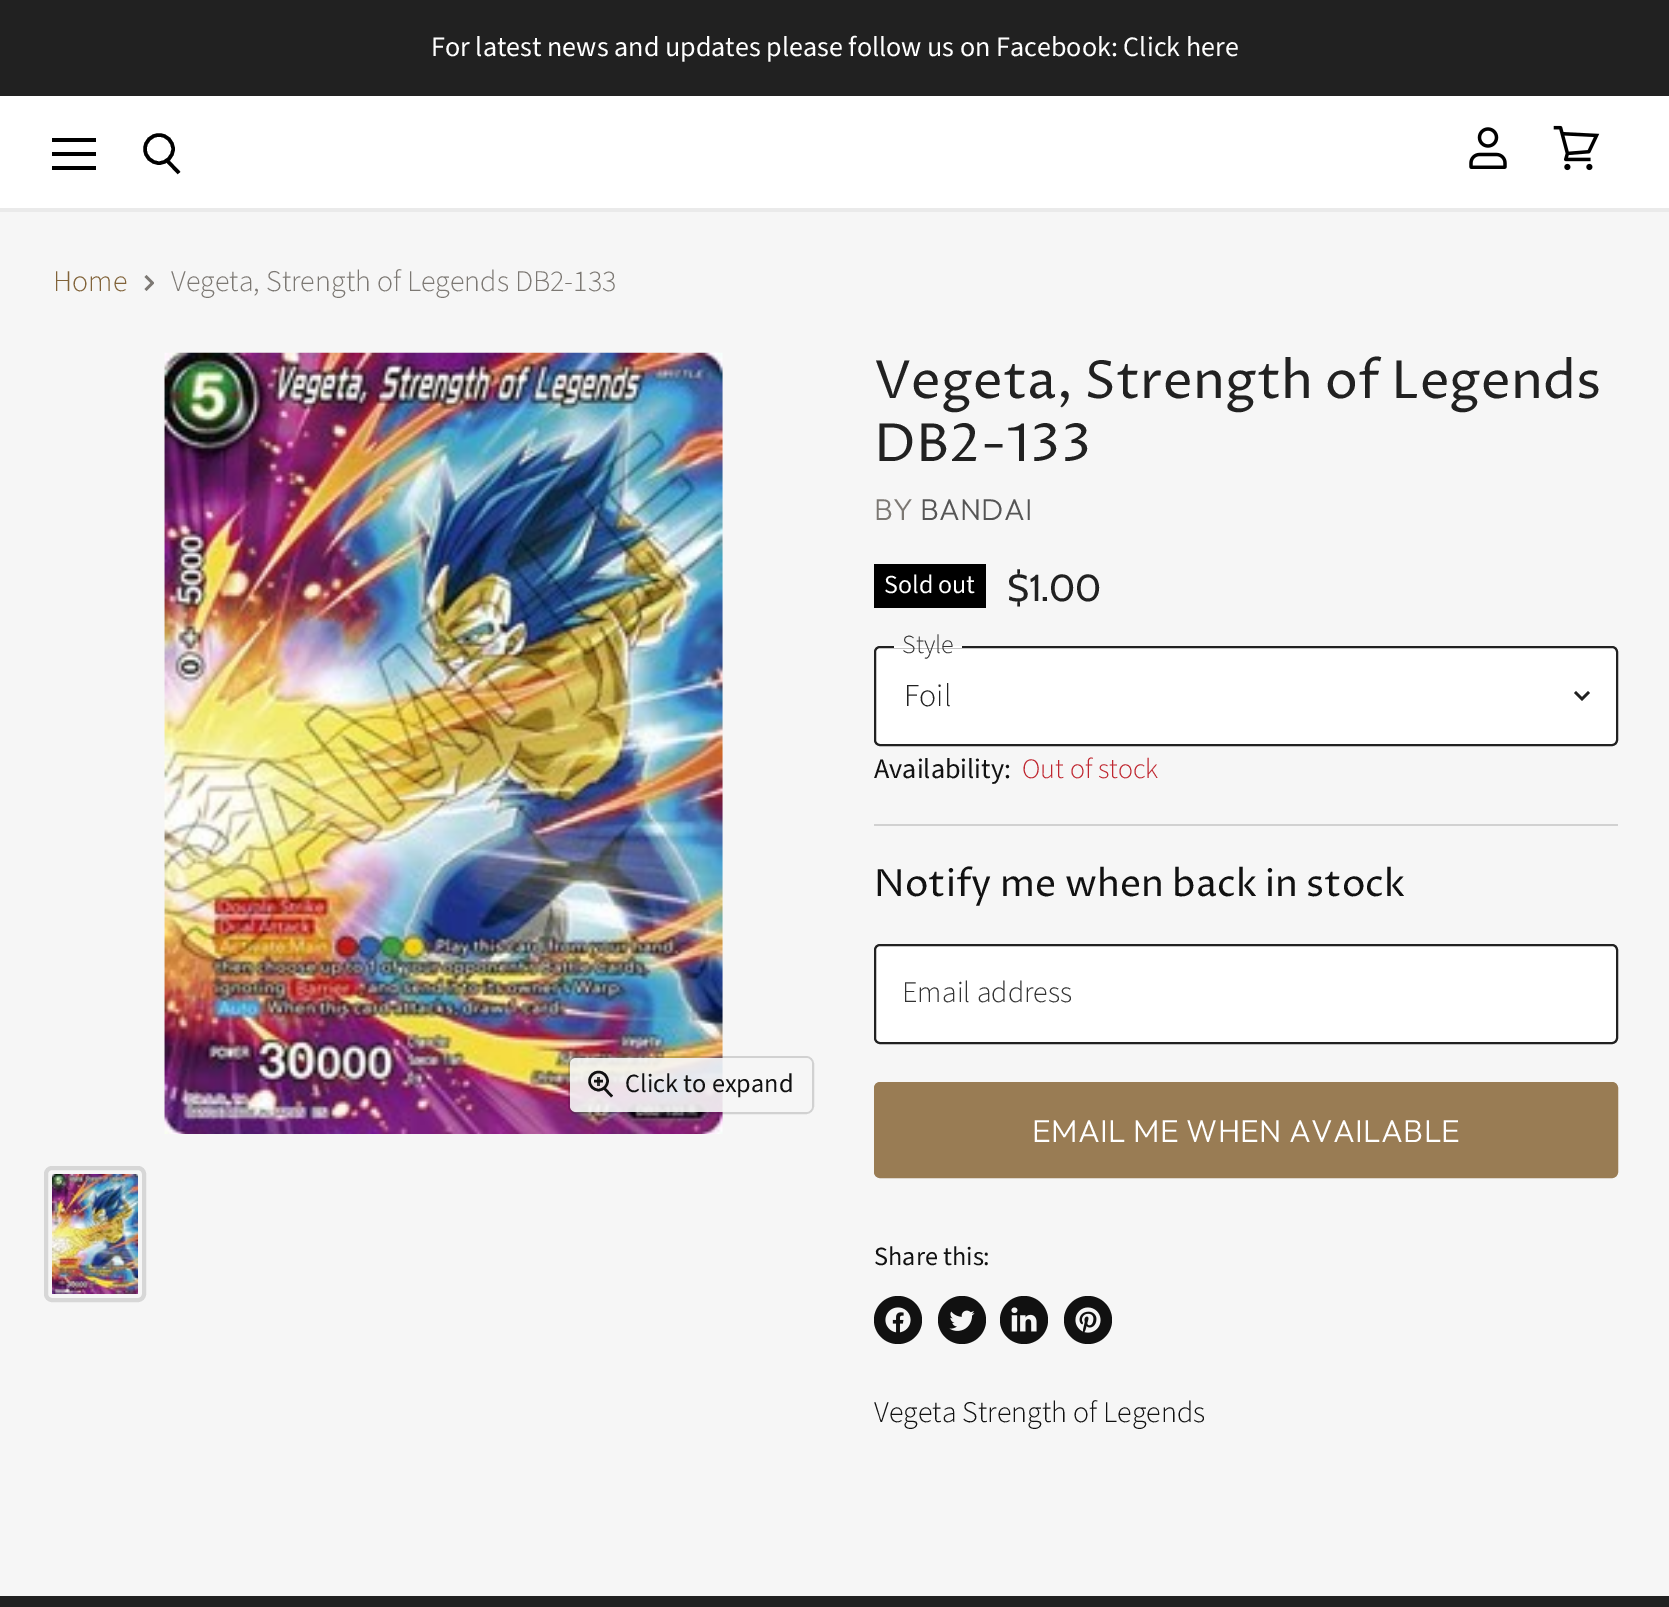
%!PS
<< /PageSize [1669 1607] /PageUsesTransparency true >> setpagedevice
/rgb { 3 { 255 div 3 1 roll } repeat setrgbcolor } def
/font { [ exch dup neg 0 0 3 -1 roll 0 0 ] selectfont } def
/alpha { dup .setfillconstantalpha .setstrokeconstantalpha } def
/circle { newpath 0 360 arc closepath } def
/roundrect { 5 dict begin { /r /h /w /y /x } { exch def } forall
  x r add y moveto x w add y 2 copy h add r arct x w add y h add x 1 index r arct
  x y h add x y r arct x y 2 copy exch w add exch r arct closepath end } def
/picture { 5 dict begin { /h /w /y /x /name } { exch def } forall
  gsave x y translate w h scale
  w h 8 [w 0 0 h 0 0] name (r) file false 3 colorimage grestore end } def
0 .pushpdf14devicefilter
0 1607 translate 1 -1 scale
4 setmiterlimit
246 246 246 rgb
0 0 1669 1607 rectfill
[
  [0 0 1669 96 33 33 33]
  [0 96 1669 112 255 255 255]
  [0 208 1669 4 234 234 234]
  [52 138 44 4 0 0 0]
  [52 152 44 4 0 0 0]
  [52 166 44 4 0 0 0]
] { aload pop rgb rectfill } forall
3.5 setlinewidth
179 173 moveto 167 160.5 lineto stroke
159 149 14 circle stroke
(img/1.rgb) 1469 127 38 42 picture
(img/2.rgb) 1553 125 47 46 picture
gsave
143.5 290.5 moveto 143.5 274.5 lineto 153.5 274.5 lineto 153.5 290.5 lineto closepath clip newpath
124 120 115 rgb
2.5 setlinewidth
145.5 290 moveto 152.5 283 lineto 145.5 276 lineto stroke
grestore
(img/3.rgb) 164 352 559 782 picture
0.15 alpha
2 setlinewidth
569 1057 244 56 7 roundrect stroke
0.9 alpha
246 246 246 rgb
570 1058 242 54 6 roundrect fill
1 alpha
17 17 17 rgb
2.5 setlinewidth
603.5 1087.5 moveto 612 1096.5 lineto stroke
598.5 1081 9 circle stroke
0.83 alpha
597 1077 3 9 rectfill
1 alpha
1 setlinejoin
594 1081 moveto 603 1081 lineto stroke
215 215 215 rgb
4 setlinewidth
0 setlinejoin
46 1168 98 132 6 roundrect stroke
(img/4.rgb) 52 1174 86 120 picture
0 0 0 rgb
874 564 112 44 rectfill
255 255 255 rgb
875 647 742 98 5 roundrect gsave fill grestore
33 33 33 rgb
2 setlinewidth
stroke
255 255 255 rgb
894 646 68 2 rectfill
33 33 33 rgb
2.5 setlinewidth
2 setlinecap
1582 699 moveto 1588 693 lineto 1582 699 moveto 1576 693 lineto stroke
209 209 209 rgb
874 824 744 2 rectfill
255 255 255 rgb
875 945 742 98 5 roundrect gsave fill grestore
33 33 33 rgb
2 setlinewidth
0 setlinecap
stroke
153 124 84 rgb
875 1083 742 94 5 roundrect gsave fill grestore
stroke
17 17 17 rgb
898 1320 24 circle fill
(img/5.rgb) 885 1307 26 26 picture
962 1320 24 circle fill
(img/6.rgb) 949 1310 26 21 picture
1024 1320 24 circle fill
(img/7.rgb) 1011 1307 26 25 picture
1088 1320 24 circle fill
(img/8.rgb) 1075 1307 26 26 picture
33 33 33 rgb
0 1596 1669 11 rectfill
/SourceSansPro-Regular 28.1 font
255 255 255 rgb
431 56 moveto (For latest news and updates please follow us on Facebook: Click here) show
/SourceSansPro-Light 30 font
129 99 57 rgb
53 291 moveto (Home) show
124 120 115 rgb
171 291 moveto (Vegeta, Strength of Legends DB2-133) show
/SourceSansPro-Regular 26.25 font
17 17 17 rgb
625 1092 moveto (Click to expand) show
/ProzaLibre-Regular 52.5 font
33 33 33 rgb
874 398 moveto (Vegeta, Strength of Legends) show
874 461 moveto (DB2-133) show
/Outfit-Light 30 font
124 120 115 rgb
874 520 moveto 0.25 0 (BY) ashow
85 85 85 rgb
920 520 moveto 0.25 0 (BANDAI) ashow
/SourceSansPro-Regular 26 font
255 255 255 rgb
884 593 moveto (Sold out) show
/Cabin-Regular 37.5 font
33 33 33 rgb
1007 601 moveto ($1.00) show
/SourceSansPro-Light 26 font
51 51 51 rgb
902 653 moveto (Style) show
/SourceSansPro-Light 32 font
33 33 33 rgb
904 706 moveto (Foil) show
/SourceSansPro-Regular 28.1 font
17 17 17 rgb
874 778 moveto (Availability:) show
/SourceSansPro-Light 28.1 font
191 38 47 rgb
1022 778 moveto (Out of stock) show
/ProzaLibre-Regular 37.5 font
17 17 17 rgb
874 896 moveto (Notify me when back in stock) show
/SourceSansPro-Light 30 font
51 51 51 rgb
902 1002 moveto (Email address) show
/Outfit-Light 31.75 font
255 255 255 rgb
1032 1142 moveto 0.3 0 (EMAIL ME WHEN AVAILABLE) ashow
/SourceSansPro-Regular 26.25 font
17 17 17 rgb
874 1265 moveto (Share this:) show
/SourceSansPro-Light 30 font
874 1422 moveto (Vegeta Strength of Legends) show
.poppdf14devicefilter showpage
